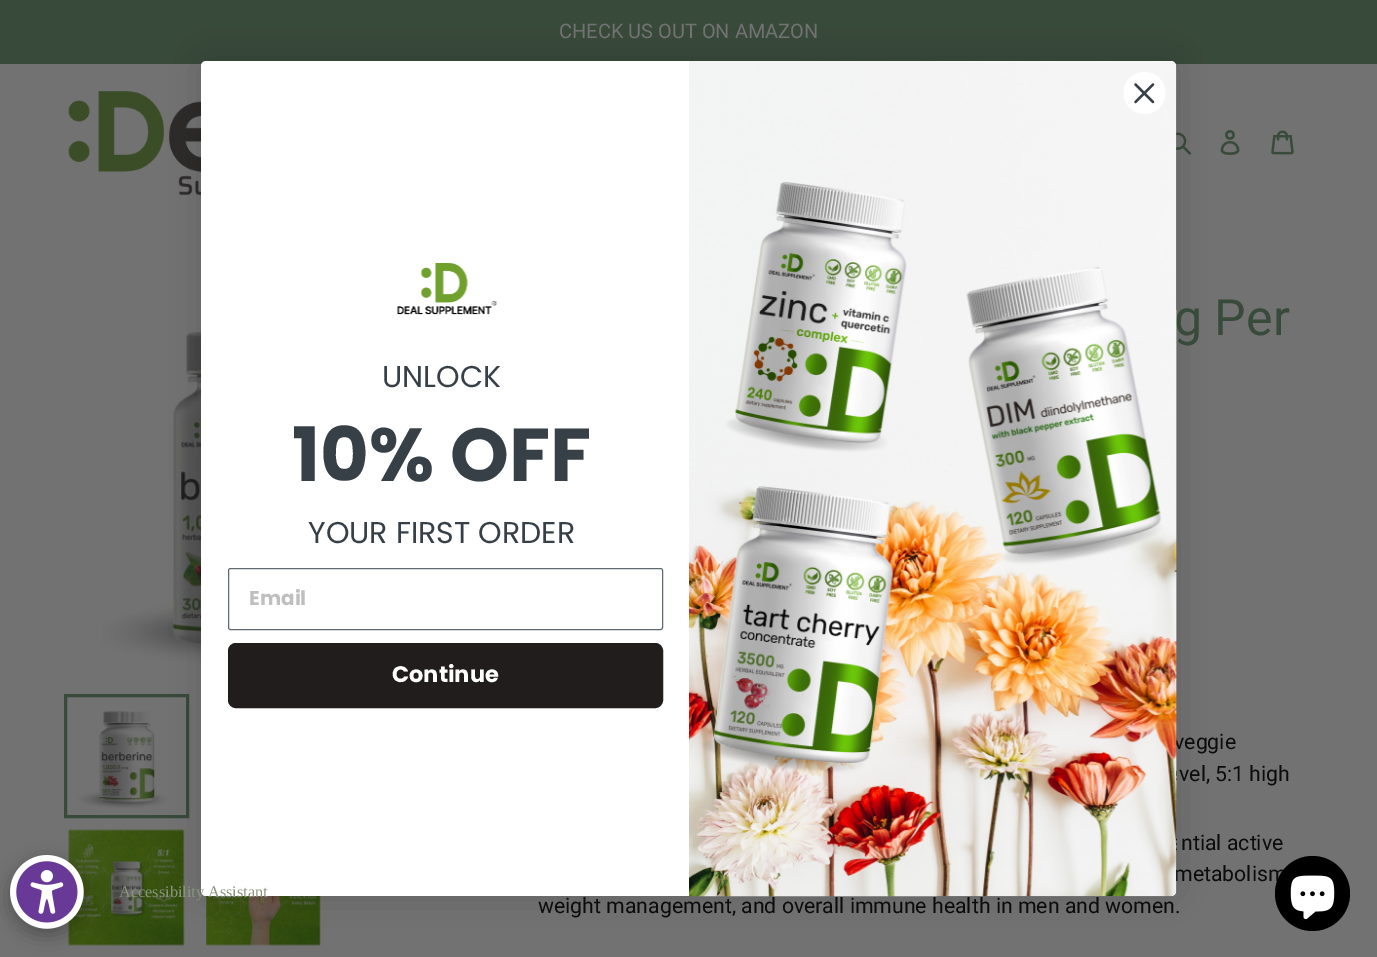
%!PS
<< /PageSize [1377 957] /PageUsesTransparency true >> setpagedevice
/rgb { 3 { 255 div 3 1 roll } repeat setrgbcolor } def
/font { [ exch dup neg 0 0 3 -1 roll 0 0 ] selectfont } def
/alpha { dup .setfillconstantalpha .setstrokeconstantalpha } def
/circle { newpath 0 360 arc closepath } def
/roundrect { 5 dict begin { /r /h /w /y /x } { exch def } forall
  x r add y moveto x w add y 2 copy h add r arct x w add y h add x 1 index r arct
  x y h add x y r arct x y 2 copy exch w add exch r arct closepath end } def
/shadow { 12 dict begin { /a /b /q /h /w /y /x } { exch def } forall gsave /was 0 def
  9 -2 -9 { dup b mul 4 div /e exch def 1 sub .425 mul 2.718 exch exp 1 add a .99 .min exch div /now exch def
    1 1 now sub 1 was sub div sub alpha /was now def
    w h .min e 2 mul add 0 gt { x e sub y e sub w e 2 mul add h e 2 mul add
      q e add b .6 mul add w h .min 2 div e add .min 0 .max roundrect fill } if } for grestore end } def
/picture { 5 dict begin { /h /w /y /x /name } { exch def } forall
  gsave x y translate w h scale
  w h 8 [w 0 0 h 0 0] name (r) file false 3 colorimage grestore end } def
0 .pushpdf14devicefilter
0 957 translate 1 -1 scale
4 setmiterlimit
114 114 114 rgb
0 0 1377 957 rectfill
(img/10.rgb) 68 829 117 117 picture
0 0 0 rgb
10 861 74 74 37 9.5 0.3 shadow
(img/1.rgb) 10 855 74 74 picture
56 74 58 rgb
0 0 1377 64 rectfill
(img/2.rgb) 68 91 133 105 picture
(img/3.rgb) 1176 132 15 23 picture
(img/4.rgb) 1220 130 20 25 picture
(img/5.rgb) 1271 130 23 25 picture
(img/8.rgb) 101 330 100 333 picture
3 setlinewidth
65.5 695.5 122 121 rectstroke
(img/9.rgb) 78 711 90 98 picture
(img/11.rgb) 206 896 115 50 picture
0 0 0 rgb
201 61 975 835 5 19 0.15 shadow
/Roboto-Regular 20 font
114 114 114 rgb
559 38 moveto (CHECK US OUT ON AMAZON) show
/Roboto-Regular 50 font
56 74 58 rgb
1174 335 moveto (g Per) show
/Roboto-Regular 21.25 font
12 12 12 rgb
[
  [(veggie) 1174 749]
  [(vel, 5:1 high) 1179 781]
  [(ntial active) 1181 850]
  [(metabolism) 1174 881]
] { aload pop moveto show } forall
255 255 255 rgb
201 61 975 835 5 roundrect fill
/LiberationSerif-Regular 16.25 font
138 147 124 rgb
119 897 moveto (Accessibility Assistant) show
(img/7.rgb) 689 61 488 836 picture
255 255 255 rgb
1144.5 93 21 circle fill
55 63 71 rgb
2.2 setlinewidth
1 setlinecap
1 setlinejoin
1135.5 84.5 moveto 1153 102 lineto 1135.5 102 moveto 1153 84.5 lineto closepath stroke
33 29 28 rgb
232 647 427 57 4 roundrect gsave fill grestore
8 setlinewidth
0 setlinecap
0 setlinejoin
stroke
/Poppins-Bold 22.5 font
255 255 255 rgb
392 682 moveto (Continue) show
96 106 114 rgb
1 setlinewidth
228.5 568.5 434 61 2 roundrect stroke
/Poppins-Bold 20 font
191 191 192 rgb
249 605 moveto (Email) show
/Poppins-Regular 30 font
55 63 71 rgb
308 543 moveto (YOUR FIRST ORDER) show
/Poppins-Bold 75 font
292 481 moveto (10% OFF) show
/Poppins-Regular 30 font
382 387 moveto (UNLOCK) show
(img/6.rgb) 397 263 101 52 picture
/Roboto-Regular 21.25 font
12 12 12 rgb
538 913 moveto (weight management, and overall immune health in men and women.) show
0 0 0 rgb
1312.5 893.5 37.5 circle fill
(img/12.rgb) 1290 875 45 45 picture
.poppdf14devicefilter showpage
